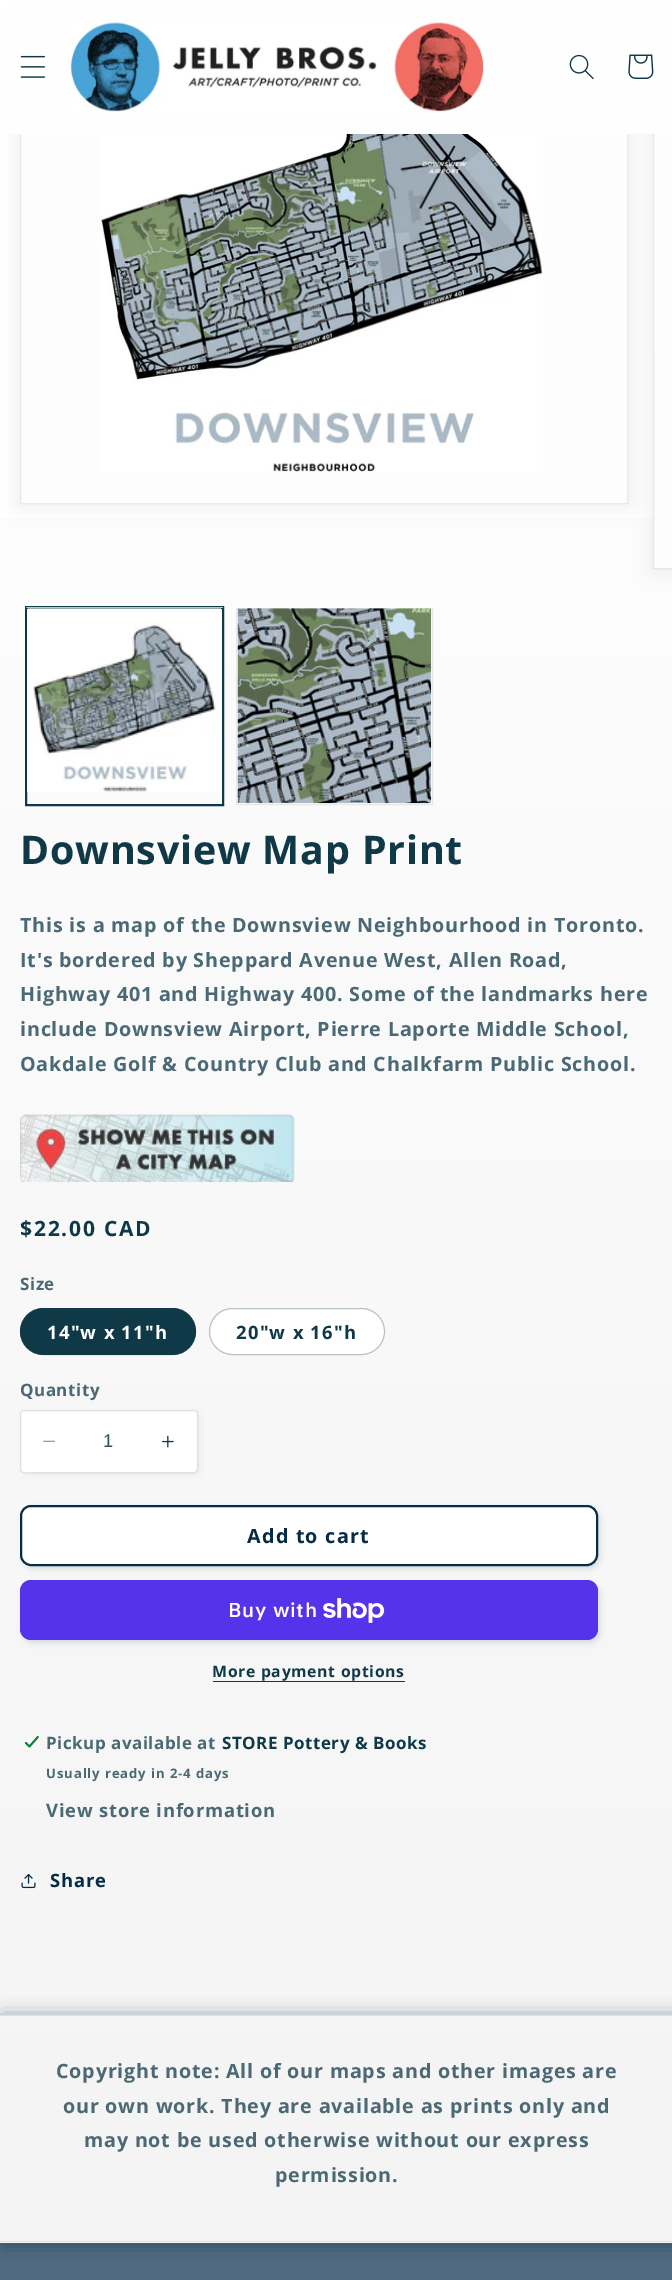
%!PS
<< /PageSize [672 2280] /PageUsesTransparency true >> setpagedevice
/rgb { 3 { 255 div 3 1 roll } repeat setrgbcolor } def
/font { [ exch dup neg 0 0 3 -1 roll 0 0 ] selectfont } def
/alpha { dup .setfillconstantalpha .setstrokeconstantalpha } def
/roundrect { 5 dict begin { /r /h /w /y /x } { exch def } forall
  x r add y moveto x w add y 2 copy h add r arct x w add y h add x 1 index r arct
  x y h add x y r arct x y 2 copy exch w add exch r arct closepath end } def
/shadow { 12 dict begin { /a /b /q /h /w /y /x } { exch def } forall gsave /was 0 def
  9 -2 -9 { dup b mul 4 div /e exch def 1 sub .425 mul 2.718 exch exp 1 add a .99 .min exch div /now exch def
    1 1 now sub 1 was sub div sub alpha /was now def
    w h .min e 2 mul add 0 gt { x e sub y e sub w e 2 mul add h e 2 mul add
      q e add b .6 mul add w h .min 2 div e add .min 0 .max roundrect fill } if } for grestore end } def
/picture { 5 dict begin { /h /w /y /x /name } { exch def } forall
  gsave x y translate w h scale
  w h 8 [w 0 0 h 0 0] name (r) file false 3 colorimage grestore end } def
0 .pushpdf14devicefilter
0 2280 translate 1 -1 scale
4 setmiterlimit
255 255 255 rgb
0 0 672 2280 rectfill
gsave 0 518 moveto 672 518 lineto 672 2243 lineto 0 2243 lineto closepath clip newpath
<< /ShadingType 2 /ColorSpace /DeviceRGB /Coords [336 0 336 2280] /Extend [true true] /Function << /FunctionType 2 /Domain [0 1] /C0 [1 1 1] /C1 [0.957 0.957 0.957] /N 1 >> >> shfill grestore
16 57 72 rgb
653 -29 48 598 0 9.5 0.1 shadow
20 26 608 478 0 9.5 0.1 shadow
gsave 653 134 moveto 672 134 lineto 672 569 lineto 653 569 lineto closepath clip newpath
<< /ShadingType 2 /ColorSpace /DeviceRGB /Coords [336 0 336 2280] /Extend [true true] /Function << /FunctionType 2 /Domain [0 1] /C0 [1 1 1] /C1 [0.957 0.957 0.957] /N 1 >> >> shfill grestore
0.1 alpha
653.5 -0.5 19 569 rectstroke
1 alpha
gsave 21 134 moveto 627 134 lineto 627 503 lineto 21 503 lineto closepath clip newpath
<< /ShadingType 2 /ColorSpace /DeviceRGB /Coords [336 0 336 2280] /Extend [true true] /Function << /FunctionType 2 /Domain [0 1] /C0 [1 1 1] /C1 [0.957 0.957 0.957] /N 1 >> >> shfill grestore
230 234 236 rgb
20.5 26.5 607 477 rectstroke
gsave 8 0 moveto 672 0 lineto 672 134 lineto 8 134 lineto closepath clip newpath
<< /ShadingType 2 /ColorSpace /DeviceRGB /Coords [336 0 336 2280] /Extend [true true] /Function << /FunctionType 2 /Domain [0 1] /C0 [1 1 1] /C1 [0.957 0.957 0.957] /N 1 >> >> shfill grestore
(img/1.rgb) 20 55 26 23 picture
(img/2.rgb) 71 22 413 90 picture
(img/3.rgb) 569 54 25 26 picture
(img/4.rgb) 628 54 26 25 picture
(img/5.rgb) 101 134 442 338 picture
16 57 72 rgb
25.5 606.5 198 199 rectstroke
26.5 608.5 196 196 rectstroke
(img/6.rgb) 27 608 195 184 picture
228 232 234 rgb
236.5 608.5 196 196 rectstroke
(img/7.rgb) 237 608 195 196 picture
(img/8.rgb) 20 1114 275 68 picture
16 57 72 rgb
20 1308 176 47 23.5 roundrect fill
0.3 alpha
20.5 1308.5 175 46 23 roundrect stroke
1 alpha
255 255 255 rgb
209 1308 176 47 23.5 roundrect fill
0.3 alpha
16 57 72 rgb
209.5 1308.5 175 46 23 roundrect stroke
1 alpha
23 1413 177 62 4 3 0.05 shadow
255 255 255 rgb
20 1410 178 63 4 roundrect fill
(img/9.rgb) 43 1440 12 2 picture
(img/10.rgb) 161 1435 13 13 picture
0.15 alpha
16 57 72 rgb
20.5 1410.5 177 62 3.5 roundrect stroke
1 alpha
23 1508 577 61 11 3 0.15 shadow
255 255 255 rgb
20 1505 578 61 11 roundrect fill
20.5 1505.5 577 60 10.5 roundrect stroke
5 44 70 rgb
2 setlinewidth
21 1506 576 59 10 roundrect stroke
16 57 72 rgb
23 1583 577 60 11 3 0.15 shadow
84 51 235 rgb
20 1580 578 60 11 roundrect fill
(img/11.rgb) 323 1598 62 25 picture
16 57 72 rgb
213 1681 192 1 rectfill
(img/12.rgb) 24 1735 16 13 picture
(img/13.rgb) 21 1874 15 15 picture
[
  [0 2015 672 1 222 226 228]
  [0 2241 672 1 221 225 227]
  [0 2243 672 37 81 106 130]
] { aload pop rgb rectfill } forall
gsave
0 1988 moveto 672 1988 lineto 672 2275 lineto 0 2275 lineto closepath 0 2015 moveto 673 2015 lineto 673 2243 lineto 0 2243 lineto closepath eoclip newpath
16 57 72 rgb
3 2018 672 227 0 9.5 0.6 shadow
grestore
/OpenSans-Bold 39.4 font
16 57 72 rgb
20 864 moveto 0.8 0 (Downsview Map Print) ashow
/OpenSans-Bold 19.7 font
75 105 117 rgb
20 932 moveto 0.8 0 (This is a map of the Downsview Neighbourhood in Toronto.) ashow
20 967 moveto 0.8 0 (It's bordered by Sheppard Avenue West, Allen Road,) ashow
20 1001 moveto 0.8 0 (Highway 401 and Highway 400. Some of the landmarks here) ashow
20 1036 moveto 0.8 0 (include Downsview Airport, Pierre Laporte Middle School,) ashow
20 1071 moveto 0.8 0 (Oakdale Golf & Country Club and Chalkfarm Public School.) ashow
/OpenSans-Bold 21 font
16 57 72 rgb
20 1236 moveto 1.75 0 ($22.00 CAD) ashow
/OpenSans-Bold 17 font
75 105 117 rgb
20 1290 moveto 0.5 0 (Size) ashow
/OpenSans-Bold 18.4 font
255 255 255 rgb
47 1339 moveto 1.25 0 (14"w x 11"h) ashow
16 57 72 rgb
236 1339 moveto 1.25 0 (20"w x 16"h) ashow
/OpenSans-Bold 17 font
75 105 117 rgb
20 1396 moveto 0.5 0 (Quantity) ashow
/LiberationSans-Regular 18.4 font
52 87 99 rgb
103 1447 moveto (1) show
/OpenSans-Bold 19.7 font
5 44 70 rgb
247 1543 moveto 1.25 0 (Add to cart) ashow
/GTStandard-SemiBold 20 font
255 255 255 rgb
228 1617 moveto 0.8 0 (Buy with) ashow
/OpenSans-Bold 15.75 font
16 57 72 rgb
212 1677 moveto 0.7 0 (More payment options) ashow
/OpenSans-Bold 17 font
75 105 117 rgb
46 1749 moveto 0.5 0 (Pickup available at) ashow
16 57 72 rgb
222 1749 moveto 0.5 0 (STORE Pottery & Books) ashow
/OpenSans-Bold 13.1 font
75 105 117 rgb
46 1778 moveto 0.9 0 (Usually ready in 2-4 days) ashow
/OpenSans-Bold 18.4 font
46 1817 moveto 0.8 0 (View store information) ashow
5 44 70 rgb
50 1887 moveto 0.8 0 (Share) ashow
/OpenSans-Bold 19.7 font
75 105 117 rgb
56 2078 moveto 0.8 0 (Copyright note: All of our maps and other images are) ashow
63 2113 moveto 0.8 0 (our own work. They are available as prints only and) ashow
84 2147 moveto 0.8 0 (may not be used otherwise without our express) ashow
275 2182 moveto 0.8 0 (permission.) ashow
.poppdf14devicefilter showpage
